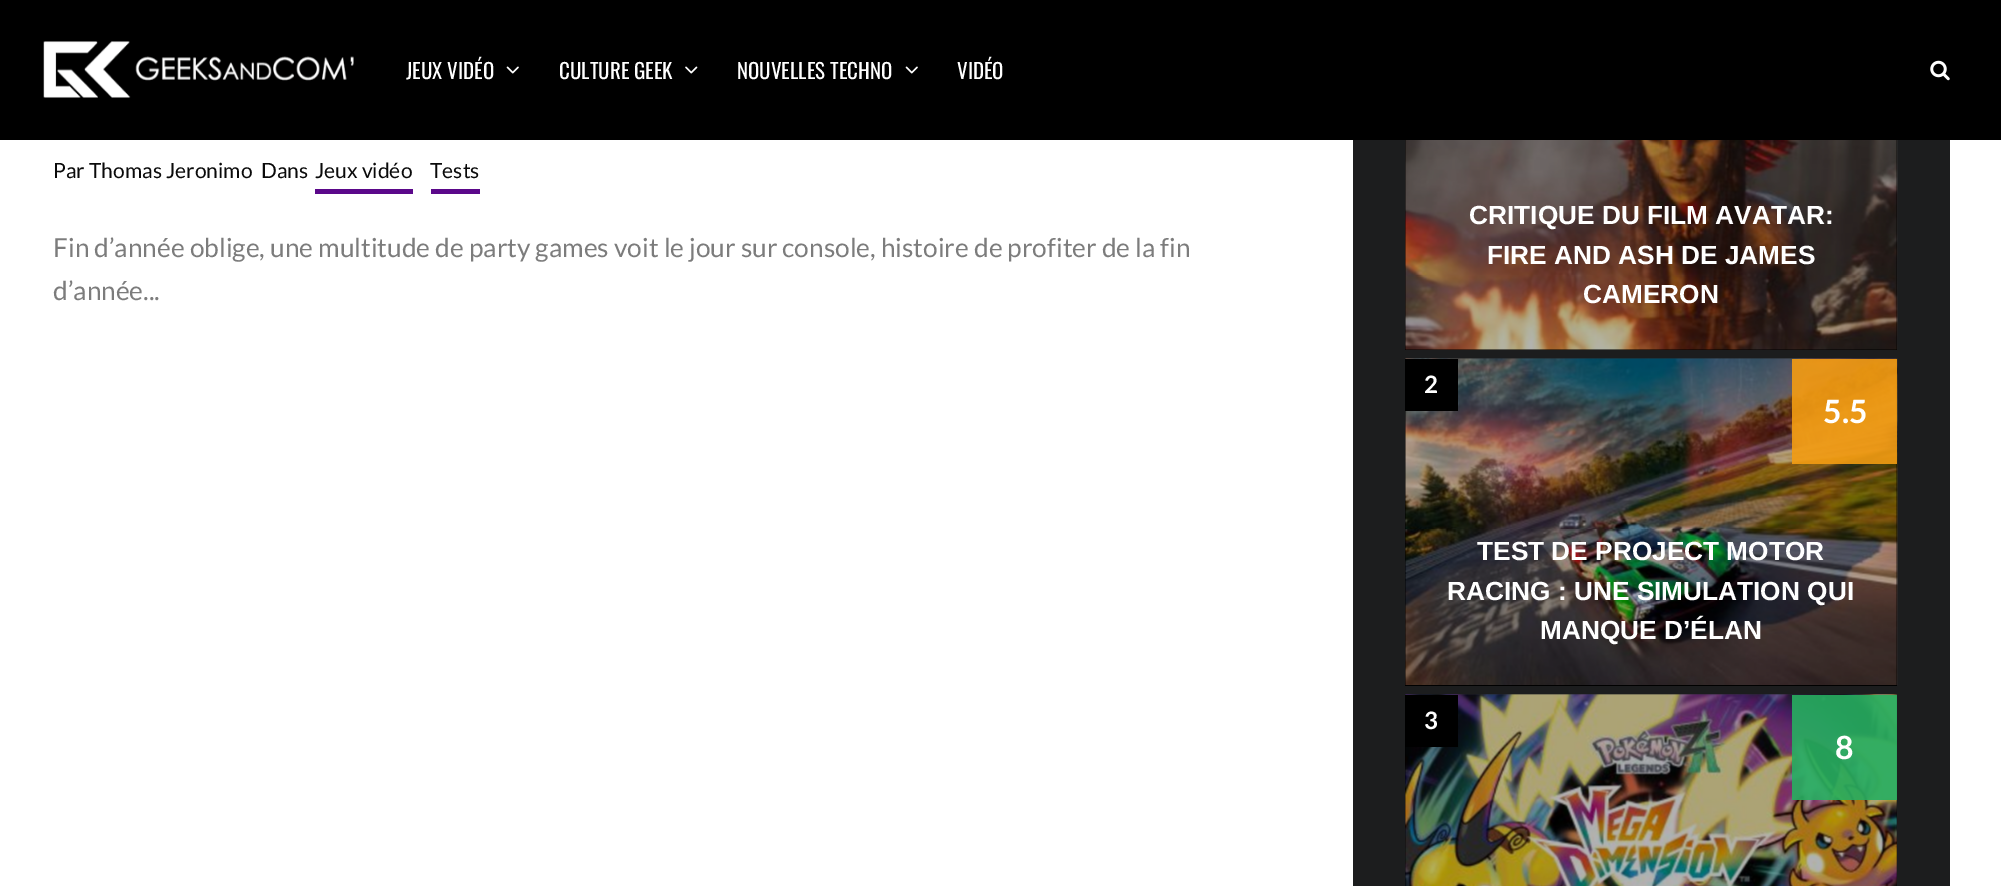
%!PS
<< /PageSize [2001 886] /PageUsesTransparency true >> setpagedevice
/rgb { 3 { 255 div 3 1 roll } repeat setrgbcolor } def
/font { [ exch dup neg 0 0 3 -1 roll 0 0 ] selectfont } def
/alpha { dup .setfillconstantalpha .setstrokeconstantalpha } def
/picture { 5 dict begin { /h /w /y /x /name } { exch def } forall
  gsave x y translate w h scale
  w h 8 [w 0 0 h 0 0] name (r) file false 3 colorimage grestore end } def
0 .pushpdf14devicefilter
0 886 translate 1 -1 scale
4 setmiterlimit
255 255 255 rgb
0 0 2001 886 rectfill
0 0 0 rgb
0 0 2001 140 rectfill
(img/1.rgb) 43 41 311 57 picture
(img/2.rgb) 506 66 13 8 picture
(img/3.rgb) 685 66 13 8 picture
(img/2.rgb) 905 66 13 8 picture
(img/4.rgb) 1930 60 20 21 picture
[
  [315 189 98 5 91 8 138]
  [431 189 49 5 91 8 138]
  [1353 140 597 746 28 29 30]
  [1405 140 492 210 0 0 0]
] { aload pop rgb rectfill } forall
(img/5.rgb) 1405 140 493 210 picture
1405 359 492 327 rectfill
(img/6.rgb) 1405 358 493 327 picture
[
  [1405 359 53 52 0 0 0]
] { aload pop rgb rectfill } forall
0.9 alpha
[
  [1792 359 105 105 243 156 18]
] { aload pop rgb rectfill } forall
1 alpha
[
  [1405 695 492 191 0 0 0]
] { aload pop rgb rectfill } forall
(img/7.rgb) 1405 694 492 192 picture
1405 695 53 52 rectfill
0.9 alpha
39 174 96 rgb
1792 695 105 105 rectfill
/Oswald-Regular 21 font
1 alpha
255 255 255 rgb
[
  [(JEUX VIDÉO) 406 79]
  [(CULTURE GEEK) 559 79]
  [(NOUVELLES TECHNO) 737 79]
  [(VIDÉO) 957 79]
] { aload pop moveto show } forall
/Lato-Regular 21 font
10 10 10 rgb
[
  [(Par Thomas Jeronimo) 53 178]
  [(Dans) 261 178]
  [(Jeux vidéo) 315 178]
  [(Tests) 430 178]
] { aload pop moveto show } forall
/Lato-Regular 26.25 font
124 124 124 rgb
53 257 moveto (Fin d’année oblige, une multitude de party games voit le jour sur console, histoire de profiter de la fin) show
53 300 moveto (d’année...) show
/LiberationSans-Bold 26.25 font
255 255 255 rgb
[
  [(CRITIQUE DU FILM AVATAR:) 1469 224]
  [(FIRE AND ASH DE JAMES) 1487 264]
  [(CAMERON) 1583 303]
] { aload pop moveto show } forall
/Lato-Bold 24 font
1424 393 moveto (2) show
/Lato-Bold 32 font
1823 423 moveto (5.5) show
/LiberationSans-Bold 26.25 font
[
  [(TEST DE PROJECT MOTOR) 1477 560]
  [(RACING : UNE SIMULATION QUI) 1447 600]
  [(MANQUE D’ÉLAN) 1540 639]
] { aload pop moveto show } forall
/Lato-Bold 24 font
1424 729 moveto (3) show
/Lato-Bold 32 font
1835 759 moveto (8) show
.poppdf14devicefilter showpage
